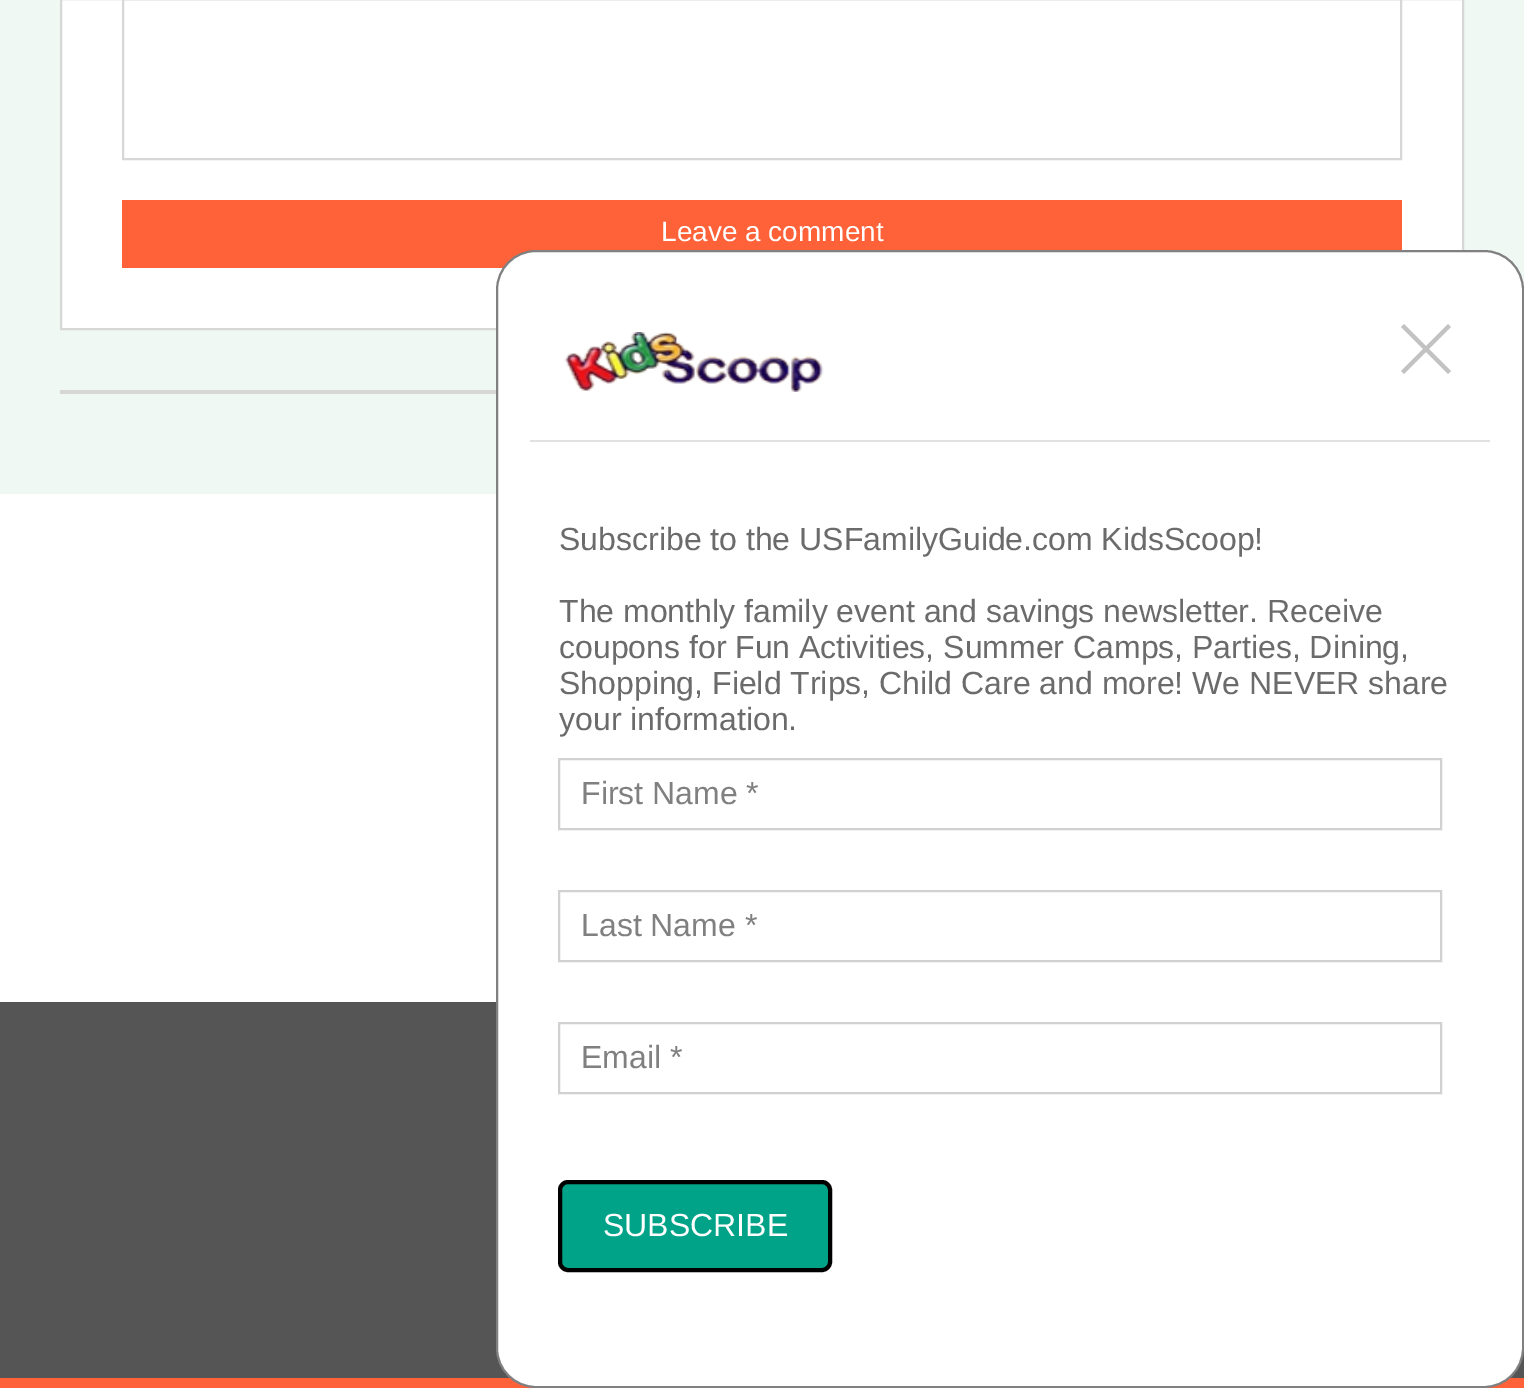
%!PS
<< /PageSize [1524 1388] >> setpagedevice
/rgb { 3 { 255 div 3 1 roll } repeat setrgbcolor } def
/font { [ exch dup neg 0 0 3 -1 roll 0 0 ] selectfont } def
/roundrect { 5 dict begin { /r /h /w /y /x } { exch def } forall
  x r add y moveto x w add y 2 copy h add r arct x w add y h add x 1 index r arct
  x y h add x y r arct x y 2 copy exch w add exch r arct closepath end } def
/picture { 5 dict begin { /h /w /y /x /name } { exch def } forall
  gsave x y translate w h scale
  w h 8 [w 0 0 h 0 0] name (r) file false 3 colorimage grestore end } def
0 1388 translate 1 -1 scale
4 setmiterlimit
240 248 243 rgb
0 0 1524 1388 rectfill
255 255 255 rgb
61 -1 moveto 1463 -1 lineto 1463 329 lineto 61 329 lineto closepath gsave fill grestore
215 215 215 rgb
2 setlinewidth
stroke
123 -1 1278 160 rectstroke
[
  [122 200 1280 68 255 97 56]
  [60 390 436 4 215 215 215]
  [0 494 496 508 255 255 255]
  [0 1002 1524 376 85 85 85]
  [0 1378 1524 10 255 97 56]
] { aload pop rgb rectfill } forall
255 255 255 rgb
497 251 1026 1136 39 roundrect gsave fill grestore
128 128 128 rgb
stroke
(img/1.rgb) 564 332 260 60 picture
194 194 194 rgb
1448 324 moveto 1451 327 lineto 1404 374 lineto 1401 371 lineto closepath fill
1401 327 moveto 1404 324 lineto 1451 371 lineto 1448 374 lineto closepath fill
225 225 225 rgb
530 440 960 2 rectfill
209 209 209 rgb
559 759 882 70 rectstroke
559 891 882 70 rectstroke
559 1023 882 70 rectstroke
1 163 136 rgb
560 1182 270 88 8 roundrect gsave fill grestore
0 0 0 rgb
4 setlinewidth
stroke
/LiberationSans-Regular 28 font
255 255 255 rgb
661 241 moveto (Leave a comment) show
/LiberationSans-Regular 32 font
107 107 107 rgb
[
  [(Subscribe to the USFamilyGuide.com KidsScoop!) 559 550]
  [(The monthly family event and savings newsletter. Receive) 559 622]
  [(coupons for Fun Activities, Summer Camps, Parties, Dining,) 559 658]
  [(Shopping, Field Trips, Child Care and more! We NEVER share) 559 694]
  [(your information.) 559 730]
] { aload pop moveto show } forall
128 128 128 rgb
[
  [(First Name *) 581 804]
  [(Last Name *) 581 936]
  [(Email *) 581 1068]
] { aload pop moveto show } forall
255 255 255 rgb
603 1236 moveto (SUBSCRIBE) show
showpage
